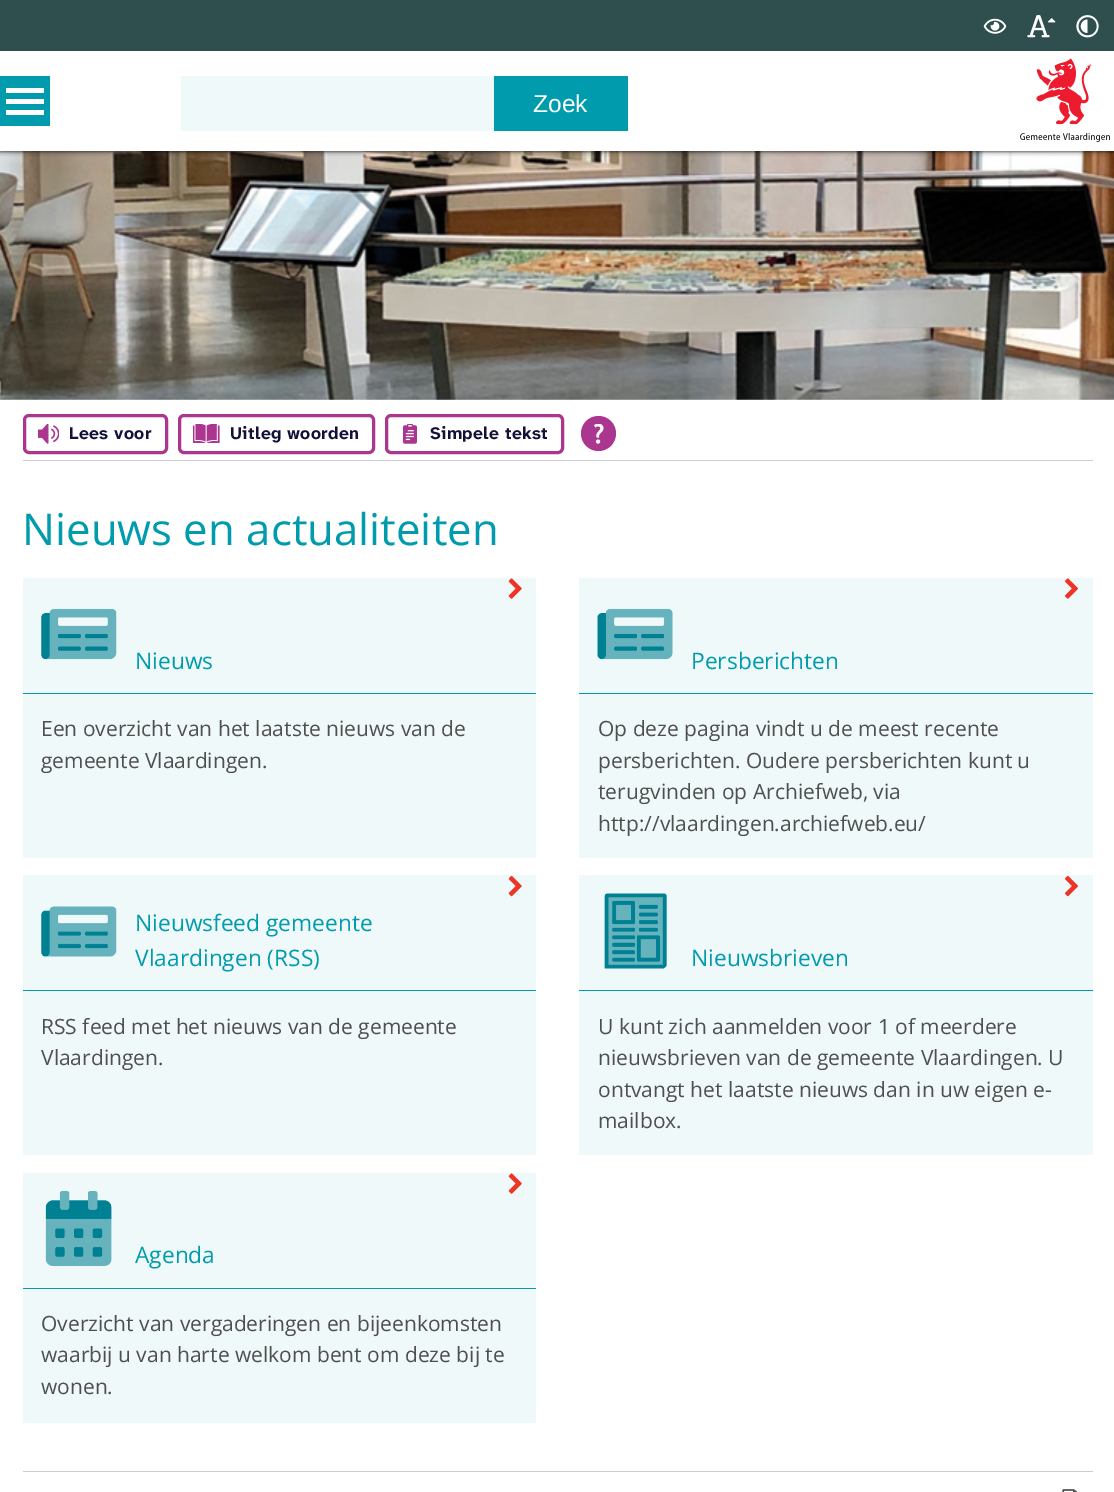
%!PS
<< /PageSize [1114 1492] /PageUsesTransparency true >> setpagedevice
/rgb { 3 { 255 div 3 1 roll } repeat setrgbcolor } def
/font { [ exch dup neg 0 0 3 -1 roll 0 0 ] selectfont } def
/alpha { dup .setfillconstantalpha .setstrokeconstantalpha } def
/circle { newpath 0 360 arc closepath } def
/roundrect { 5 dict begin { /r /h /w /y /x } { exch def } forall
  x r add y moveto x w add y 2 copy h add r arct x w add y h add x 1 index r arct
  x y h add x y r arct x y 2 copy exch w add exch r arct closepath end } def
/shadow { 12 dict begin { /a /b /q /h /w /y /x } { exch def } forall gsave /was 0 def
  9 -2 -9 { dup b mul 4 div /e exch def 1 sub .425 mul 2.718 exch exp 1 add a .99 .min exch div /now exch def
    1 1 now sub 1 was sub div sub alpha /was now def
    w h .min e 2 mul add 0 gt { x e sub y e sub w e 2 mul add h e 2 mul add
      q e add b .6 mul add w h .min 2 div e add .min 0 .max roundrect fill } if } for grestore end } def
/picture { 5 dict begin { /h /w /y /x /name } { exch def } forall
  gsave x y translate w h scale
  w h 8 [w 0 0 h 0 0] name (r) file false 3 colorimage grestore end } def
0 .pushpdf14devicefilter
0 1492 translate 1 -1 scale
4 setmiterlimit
255 255 255 rgb
0 0 1114 1492 rectfill
(img/5.rgb) 0 151 1114 249 picture
0 0 0 rgb
0 0 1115 151 0 2.5 1 shadow
255 255 255 rgb
0 51 1114 100 rectfill
47 79 79 rgb
0 0 1114 51 rectfill
(img/1.rgb) 983 18 24 16 picture
(img/2.rgb) 1027 15 29 23 picture
(img/3.rgb) 1076 15 23 23 picture
239 249 250 rgb
181 76 313 55 rectfill
0 155 172 rgb
494 76 134 55 rectfill
(img/4.rgb) 1020 58 90 84 picture
[
  [0 76 50 50 0 155 172]
  [6 110 38 5 255 255 255]
  [6 99 38 5 255 255 255]
  [6 88 38 5 255 255 255]
  [23 460 1070 1 204 204 204]
] { aload pop rgb rectfill } forall
171 54 144 rgb
3 setlinewidth
24.5 415.5 142 37 4.5 roundrect stroke
(img/6.rgb) 38 424 21 20 picture
179.5 415.5 194 37 4.5 roundrect stroke
(img/7.rgb) 193 424 27 19 picture
386.5 415.5 176 37 4.5 roundrect stroke
(img/8.rgb) 402 424 16 20 picture
598.5 433.5 17.5 circle fill
(img/9.rgb) 594 424 10 20 picture
239 249 250 rgb
23 578 513 280 rectfill
(img/10.rgb) 508 578 14 21 picture
0 155 172 rgb
23 693 513 1 rectfill
(img/11.rgb) 41 608 76 52 picture
239 249 250 rgb
579 578 514 280 rectfill
(img/12.rgb) 1064 578 14 21 picture
0 155 172 rgb
579 693 514 1 rectfill
(img/13.rgb) 597 608 76 52 picture
239 249 250 rgb
23 875 513 280 rectfill
(img/14.rgb) 508 875 14 22 picture
0 155 172 rgb
23 990 513 1 rectfill
(img/15.rgb) 41 906 76 51 picture
239 249 250 rgb
579 875 514 280 rectfill
(img/16.rgb) 1064 875 14 22 picture
0 155 172 rgb
579 990 514 1 rectfill
(img/17.rgb) 604 893 63 76 picture
239 249 250 rgb
23 1173 513 250 rectfill
(img/10.rgb) 508 1173 14 21 picture
0 155 172 rgb
23 1288 513 1 rectfill
(img/18.rgb) 45 1191 67 75 picture
204 204 204 rgb
23 1471 1070 1 rectfill
(img/19.rgb) 1062 1489 16 3 picture
/LiberationSans-Regular 24.5 font
255 255 255 rgb
533 112 moveto (Zoek) show
/AtkinsonHyperlegibleNext-Bold 17.5 font
16 18 55 rgb
69 439 moveto 0.3 0 (Lees voor) ashow
230 439 moveto 0.3 0 (Uitleg woorden) ashow
430 439 moveto 0.3 0 (Simpele tekst) ashow
/OpenSans-Regular 43.75 font
0 155 172 rgb
22 545 moveto (Nieuws en actualiteiten) show
/OpenSans-Regular 22.75 font
135 669 moveto (Nieuws) show
/OpenSans-Regular 21 font
79 79 79 rgb
41 736 moveto (Een overzicht van het laatste nieuws van de) show
41 768 moveto (gemeente Vlaardingen.) show
/OpenSans-Regular 22.75 font
0 155 172 rgb
691 669 moveto (Persberichten) show
/OpenSans-Regular 21 font
79 79 79 rgb
[
  [(Op deze pagina vindt u de meest recente) 598 736]
  [(persberichten. Oudere persberichten kunt u) 598 768]
  [(terugvinden op Archiefweb, via) 598 799]
  [(http://vlaardingen.archiefweb.eu/) 598 831]
] { aload pop moveto show } forall
/OpenSans-Regular 22.75 font
0 155 172 rgb
135 931 moveto (Nieuwsfeed gemeente) show
135 966 moveto (Vlaardingen \(RSS\)) show
/OpenSans-Regular 21 font
79 79 79 rgb
41 1034 moveto (RSS feed met het nieuws van de gemeente) show
41 1065 moveto (Vlaardingen.) show
/OpenSans-Regular 22.75 font
0 155 172 rgb
691 966 moveto (Nieuwsbrieven) show
/OpenSans-Regular 21 font
79 79 79 rgb
[
  [(U kunt zich aanmelden voor 1 of meerdere) 598 1034]
  [(nieuwsbrieven van de gemeente Vlaardingen. U) 598 1065]
  [(ontvangt het laatste nieuws dan in uw eigen e-) 598 1097]
  [(mailbox.) 598 1128]
] { aload pop moveto show } forall
/OpenSans-Regular 22.75 font
0 155 172 rgb
135 1263 moveto (Agenda) show
/OpenSans-Regular 21 font
79 79 79 rgb
[
  [(Overzicht van vergaderingen en bijeenkomsten) 41 1331]
  [(waarbij u van harte welkom bent om deze bij te) 41 1362]
  [(wonen.) 41 1394]
] { aload pop moveto show } forall
.poppdf14devicefilter showpage
